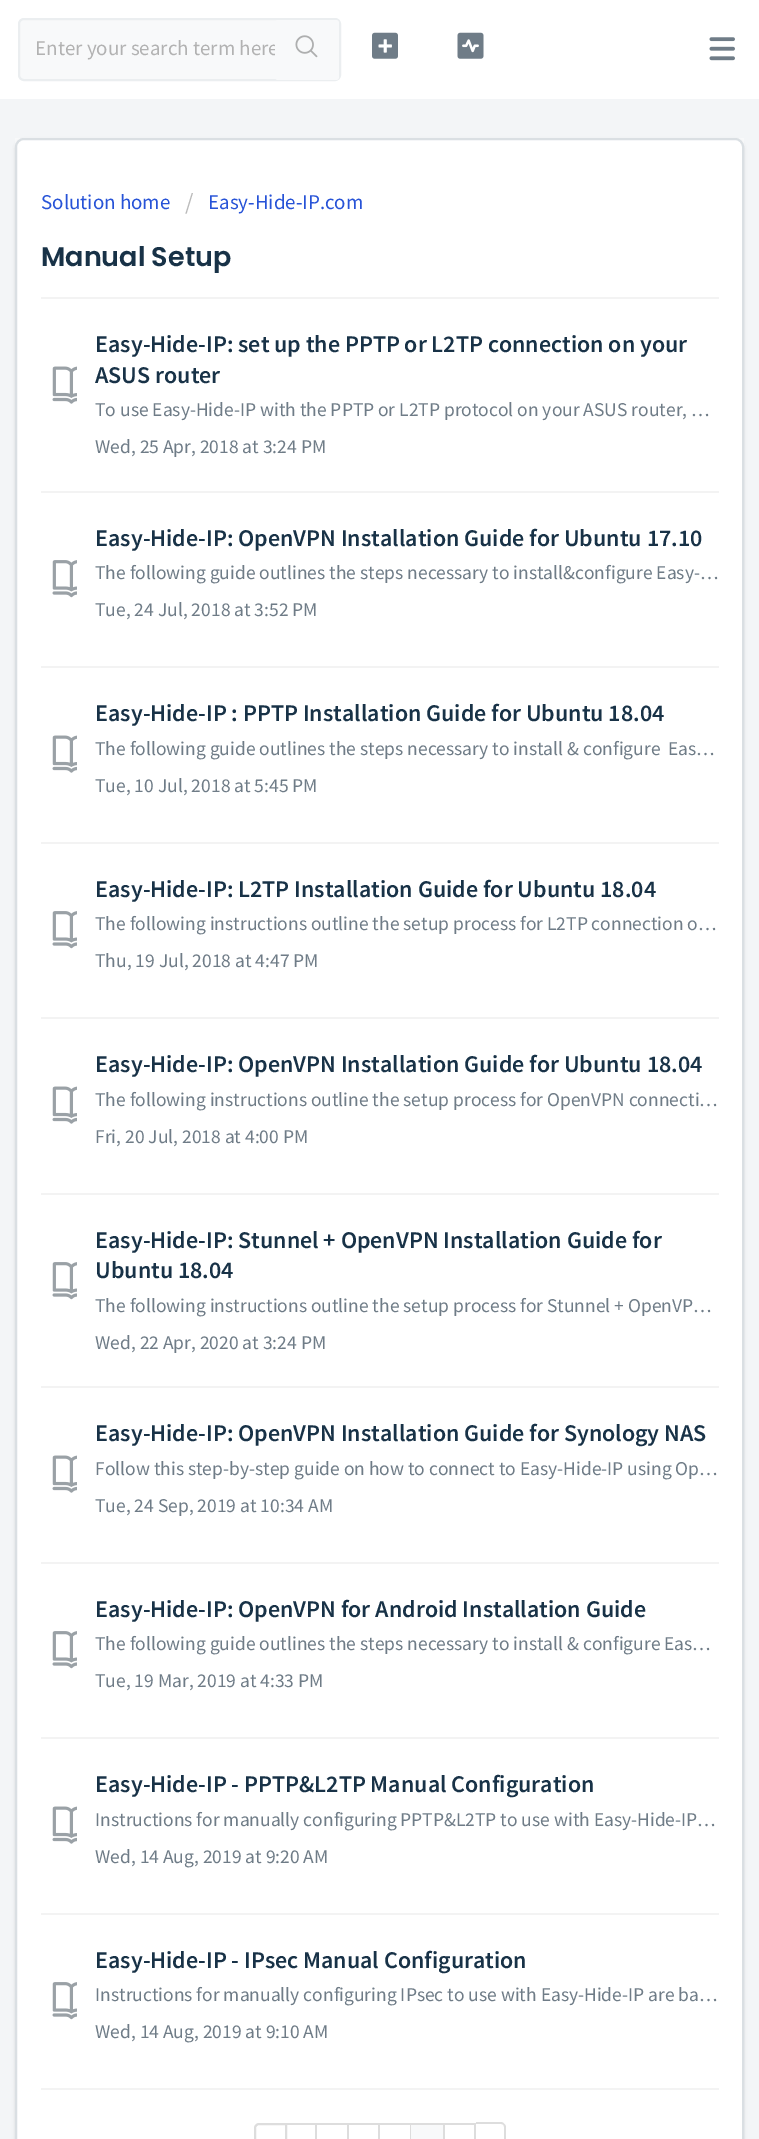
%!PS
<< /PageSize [759 2139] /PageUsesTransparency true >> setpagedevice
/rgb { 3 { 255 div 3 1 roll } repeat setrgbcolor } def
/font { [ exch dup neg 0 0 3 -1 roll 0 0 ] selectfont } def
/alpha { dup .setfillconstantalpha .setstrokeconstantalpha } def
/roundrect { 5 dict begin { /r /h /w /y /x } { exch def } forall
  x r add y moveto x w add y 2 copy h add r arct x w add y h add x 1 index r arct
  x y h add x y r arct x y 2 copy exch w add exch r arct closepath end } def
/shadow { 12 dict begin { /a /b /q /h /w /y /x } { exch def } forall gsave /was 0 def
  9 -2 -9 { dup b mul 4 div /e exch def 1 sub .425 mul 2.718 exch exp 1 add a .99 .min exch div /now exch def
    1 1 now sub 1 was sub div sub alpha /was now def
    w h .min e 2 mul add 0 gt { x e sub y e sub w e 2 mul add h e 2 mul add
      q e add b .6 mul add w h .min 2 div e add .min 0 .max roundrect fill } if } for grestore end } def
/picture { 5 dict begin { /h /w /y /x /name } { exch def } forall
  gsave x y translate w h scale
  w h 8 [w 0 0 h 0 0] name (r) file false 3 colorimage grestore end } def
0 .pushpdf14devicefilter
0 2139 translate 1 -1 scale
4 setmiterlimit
243 245 247 rgb
0 0 759 2139 rectfill
255 255 255 rgb
0 0 759 99 rectfill
(img/1.rgb) 709 37 26 24 picture
248 249 250 rgb
19 19 321 61 5 roundrect gsave fill grestore
235 238 240 rgb
2 setlinewidth
stroke
(img/3.rgb) 372 32 26 27 picture
(img/4.rgb) 457 32 27 27 picture
248 249 250 rgb
15 138 729 9 rectfill
63 63 68 rgb
15 140 729 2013 9 1.5 0.15 shadow
255 255 255 rgb
16 139 727 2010 8 roundrect gsave fill grestore
218 223 227 rgb
stroke
243 243 243 rgb
41 2088 678 2 rectfill
41 297 678 2 rectfill
(img/5.rgb) 52 366 25 38 picture
41 491 678 2 rectfill
(img/6.rgb) 52 560 25 38 picture
41 666 678 2 rectfill
(img/5.rgb) 52 735 25 38 picture
41 842 678 2 rectfill
(img/6.rgb) 52 911 25 38 picture
41 1017 678 2 rectfill
(img/5.rgb) 52 1086 25 38 picture
41 1193 678 2 rectfill
(img/6.rgb) 52 1262 25 38 picture
41 1386 678 2 rectfill
(img/5.rgb) 52 1455 25 38 picture
41 1562 678 2 rectfill
(img/6.rgb) 52 1631 25 38 picture
41 1737 678 2 rectfill
(img/5.rgb) 52 1806 25 38 picture
41 1913 678 2 rectfill
(img/6.rgb) 52 1982 25 38 picture
221 221 221 rgb
259 2124 moveto 286 2124 lineto 286 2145 lineto 259 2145 lineto 257 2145 255 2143 255 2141 curveto 255 2128 lineto 255 2126 257 2124 259 2124 curveto closepath stroke
287 2123 61 2 rectfill
315 2123 2 16 rectfill
476 2122 moveto 501 2122 lineto 503 2122 506 2125 506 2127 curveto 506 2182 lineto 506 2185 503 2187 501 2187 curveto 476 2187 lineto closepath 476 2124 moveto 501 2124 lineto 503 2124 504 2125 504 2127 curveto 504 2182 lineto 504 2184 503 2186 501 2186 curveto 476 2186 lineto closepath eofill
[
  [347 2123 2 16 221 221 221]
  [348 2123 96 2 221 221 221]
  [378 2123 2 16 221 221 221]
  [410 2123 1 16 221 221 221]
  [411 2125 32 14 248 249 250]
  [443 2123 2 16 221 221 221]
  [444 2123 32 2 221 221 221]
  [474 2123 2 16 221 221 221]
] { aload pop rgb rectfill } forall
/SourceSansPro-Regular 21 font
178 178 178 rgb
35 55 moveto (Enter your search term here) show
248 249 250 rgb
275 20 64 60 3 roundrect fill
(img/2.rgb) 295 35 23 23 picture
39 83 215 rgb
41 209 moveto (Solution home) show
/SourceSansPro-Regular 24 font
187 187 187 rgb
185 210 moveto (/) show
/SourceSansPro-Regular 21 font
39 83 215 rgb
208 209 moveto (Easy-Hide-IP.com) show
/Poppins-SemiBold 27 font
24 50 71 rgb
41 266 moveto (Manual Setup) show
/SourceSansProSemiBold-SemiBold 24 font
95 352 moveto (Easy-Hide-IP: set up the PPTP or L2TP connection on your) show
95 383 moveto (ASUS router) show
/SourceSansPro-Regular 19.5 font
111 124 135 rgb
95 416 moveto (To use Easy-Hide-IP with the PPTP or L2TP protocol on your ASUS router, …) show
95 453 moveto (Wed, 25 Apr, 2018 at 3:24 PM) show
/SourceSansProSemiBold-SemiBold 24 font
24 50 71 rgb
95 546 moveto (Easy-Hide-IP: OpenVPN Installation Guide for Ubuntu 17.10) show
/SourceSansPro-Regular 19.5 font
111 124 135 rgb
95 579 moveto (The following guide outlines the steps necessary to install&configure Easy-…) show
95 616 moveto (Tue, 24 Jul, 2018 at 3:52 PM) show
/SourceSansProSemiBold-SemiBold 24 font
24 50 71 rgb
95 721 moveto (Easy-Hide-IP : PPTP Installation Guide for Ubuntu 18.04) show
/SourceSansPro-Regular 19.5 font
111 124 135 rgb
95 755 moveto (The following guide outlines the steps necessary to install & configure  Eas…) show
95 792 moveto (Tue, 10 Jul, 2018 at 5:45 PM) show
/SourceSansProSemiBold-SemiBold 24 font
24 50 71 rgb
95 897 moveto (Easy-Hide-IP: L2TP Installation Guide for Ubuntu 18.04) show
/SourceSansPro-Regular 19.5 font
111 124 135 rgb
95 930 moveto (The following instructions outline the setup process for L2TP connection o…) show
95 967 moveto (Thu, 19 Jul, 2018 at 4:47 PM) show
/SourceSansProSemiBold-SemiBold 24 font
24 50 71 rgb
95 1072 moveto (Easy-Hide-IP: OpenVPN Installation Guide for Ubuntu 18.04) show
/SourceSansPro-Regular 19.5 font
111 124 135 rgb
95 1106 moveto (The following instructions outline the setup process for OpenVPN connecti…) show
95 1143 moveto (Fri, 20 Jul, 2018 at 4:00 PM) show
/SourceSansProSemiBold-SemiBold 24 font
24 50 71 rgb
95 1248 moveto (Easy-Hide-IP: Stunnel + OpenVPN Installation Guide for) show
95 1278 moveto (Ubuntu 18.04) show
/SourceSansPro-Regular 19.5 font
111 124 135 rgb
95 1312 moveto (The following instructions outline the setup process for Stunnel + OpenVP…) show
95 1349 moveto (Wed, 22 Apr, 2020 at 3:24 PM) show
/SourceSansProSemiBold-SemiBold 24 font
24 50 71 rgb
95 1441 moveto (Easy-Hide-IP: OpenVPN Installation Guide for Synology NAS) show
/SourceSansPro-Regular 19.5 font
111 124 135 rgb
95 1475 moveto (Follow this step-by-step guide on how to connect to Easy-Hide-IP using Op…) show
95 1512 moveto (Tue, 24 Sep, 2019 at 10:34 AM) show
/SourceSansProSemiBold-SemiBold 24 font
24 50 71 rgb
95 1617 moveto (Easy-Hide-IP: OpenVPN for Android Installation Guide) show
/SourceSansPro-Regular 19.5 font
111 124 135 rgb
95 1650 moveto (The following guide outlines the steps necessary to install & configure Eas…) show
95 1687 moveto (Tue, 19 Mar, 2019 at 4:33 PM) show
/SourceSansProSemiBold-SemiBold 24 font
24 50 71 rgb
95 1792 moveto (Easy-Hide-IP - PPTP&L2TP Manual Configuration) show
/SourceSansPro-Regular 19.5 font
111 124 135 rgb
95 1826 moveto (Instructions for manually configuring PPTP&L2TP to use with Easy-Hide-IP…) show
95 1863 moveto (Wed, 14 Aug, 2019 at 9:20 AM) show
/SourceSansProSemiBold-SemiBold 24 font
24 50 71 rgb
95 1968 moveto (Easy-Hide-IP - IPsec Manual Configuration) show
/SourceSansPro-Regular 19.5 font
111 124 135 rgb
95 2001 moveto (Instructions for manually configuring IPsec to use with Easy-Hide-IP are ba…) show
95 2038 moveto (Wed, 14 Aug, 2019 at 9:10 AM) show
.poppdf14devicefilter showpage
